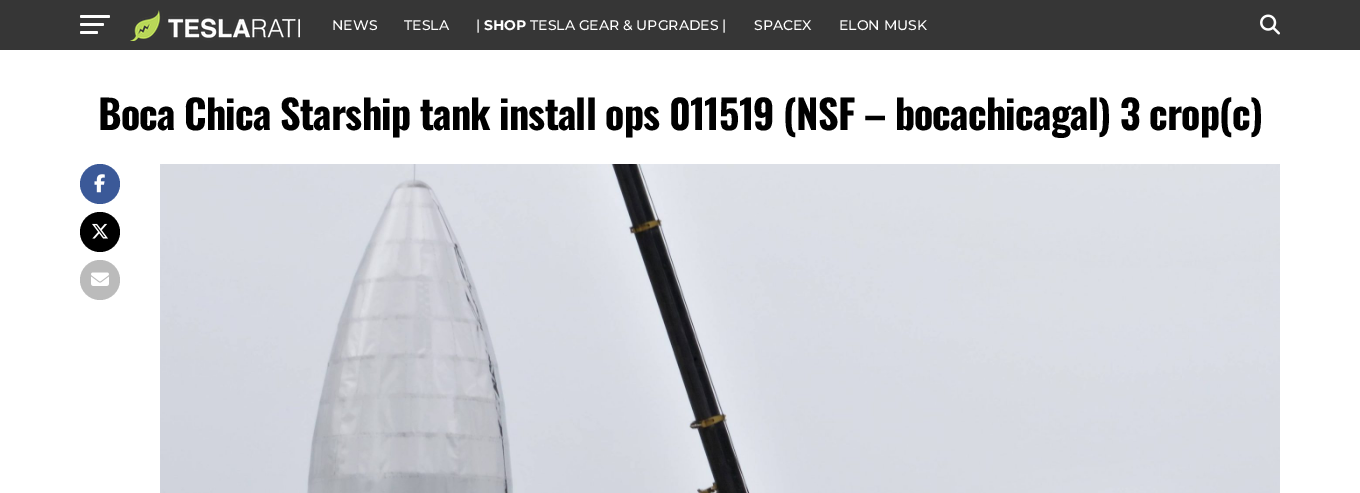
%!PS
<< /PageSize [1360 493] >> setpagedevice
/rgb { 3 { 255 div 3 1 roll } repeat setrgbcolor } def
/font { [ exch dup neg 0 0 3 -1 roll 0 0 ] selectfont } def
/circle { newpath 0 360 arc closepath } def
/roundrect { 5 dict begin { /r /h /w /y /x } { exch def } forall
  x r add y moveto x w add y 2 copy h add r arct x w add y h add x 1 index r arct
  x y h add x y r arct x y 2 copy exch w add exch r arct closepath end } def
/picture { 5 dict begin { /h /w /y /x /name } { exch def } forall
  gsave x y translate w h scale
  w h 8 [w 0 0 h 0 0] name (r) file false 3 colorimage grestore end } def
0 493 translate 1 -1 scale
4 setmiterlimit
255 255 255 rgb
0 0 1360 493 rectfill
54 54 54 rgb
0 0 1360 50 rectfill
255 255 255 rgb
80 15 30 3 1.5 roundrect fill
80 23 24 3 1.5 roundrect fill
80 31 18 3 1.5 roundrect fill
(img/1.rgb) 130 10 170 31 picture
(img/2.rgb) 1260 14 20 21 picture
59 89 152 rgb
100 184 20 circle fill
(img/3.rgb) 94 174 11 19 picture
0 0 0 rgb
100 232 20 circle fill
(img/4.rgb) 92 223 16 16 picture
187 187 187 rgb
100 280 20 circle fill
(img/5.rgb) 91 272 18 14 picture
(img/6.rgb) 160 164 1120 329 picture
/Montserrat-Medium 14 font
255 255 255 rgb
[
  [(NEWS) 332 30]
  [(TESLA) 404 30]
  [(|) 476 30]
] { aload pop moveto show } forall
/Montserrat-Bold 14 font
484 30 moveto (SHOP) show
/Montserrat-Medium 14 font
[
  [(TESLA GEAR & UPGRADES |) 530 30]
  [(SPACEX) 754 30]
  [(ELON MUSK) 839 30]
] { aload pop moveto show } forall
/Oswald-Bold 40 font
0 0 0 rgb
98 130 moveto -0.8 0 (Boca Chica Starship tank install ops 011519 \(NSF – bocachicagal\) 3 crop\(c\)) ashow
showpage
